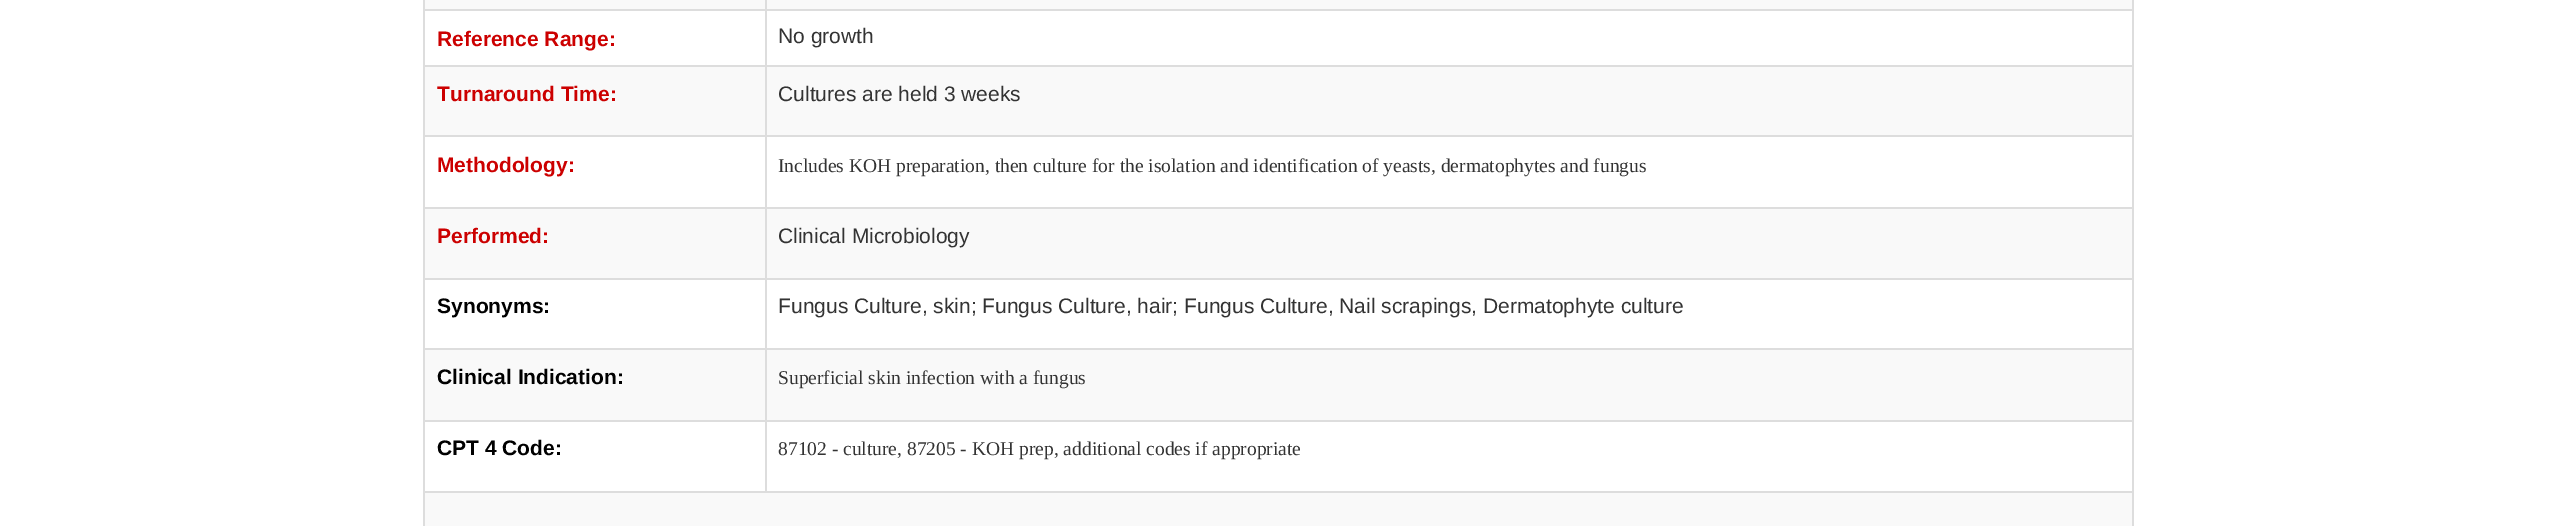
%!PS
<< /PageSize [2556 526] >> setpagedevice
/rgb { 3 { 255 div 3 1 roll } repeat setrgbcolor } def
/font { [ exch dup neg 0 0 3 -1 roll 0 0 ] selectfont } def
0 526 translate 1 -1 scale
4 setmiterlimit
255 255 255 rgb
0 0 2556 526 rectfill
[
  [2132 0 2 526 221 221 221]
  [423 0 2 526 221 221 221]
  [425 0 1707 9 249 249 249]
  [765 9 1368 2 221 221 221]
  [765 65 1368 2 221 221 221]
  [425 67 1707 68 249 249 249]
  [765 135 1368 2 221 221 221]
  [765 207 1368 2 221 221 221]
  [425 209 1707 69 249 249 249]
  [765 278 1368 2 221 221 221]
  [765 348 1368 2 221 221 221]
  [425 350 1707 70 249 249 249]
  [765 420 1368 2 221 221 221]
  [423 491 1710 2 221 221 221]
  [765 420 2 72 221 221 221]
  [423 420 344 2 221 221 221]
  [765 348 2 74 221 221 221]
  [423 348 344 2 221 221 221]
  [765 278 2 72 221 221 221]
  [423 278 344 2 221 221 221]
  [765 207 2 72 221 221 221]
  [423 207 344 2 221 221 221]
  [765 135 2 74 221 221 221]
  [423 135 344 2 221 221 221]
  [765 65 2 72 221 221 221]
  [423 65 344 2 221 221 221]
  [765 9 2 57 221 221 221]
  [423 9 344 2 221 221 221]
  [765 0 2 11 221 221 221]
  [425 493 1707 33 249 249 249]
] { aload pop rgb rectfill } forall
/LiberationSans-Bold 21 font
204 0 0 rgb
437 46 moveto (Reference Range:) show
/LiberationSans-Regular 21 font
51 51 51 rgb
778 43 moveto (No growth) show
/LiberationSans-Bold 21 font
204 0 0 rgb
437 101 moveto (Turnaround Time:) show
/LiberationSans-Regular 21 font
51 51 51 rgb
778 101 moveto (Cultures are held 3 weeks) show
/LiberationSans-Bold 21 font
204 0 0 rgb
437 172 moveto (Methodology:) show
/LiberationSerif-Regular 19.5 font
51 51 51 rgb
778 172 moveto (Includes KOH preparation, then culture for the isolation and identification of yeasts, dermatophytes and fungus) show
/LiberationSans-Bold 21 font
204 0 0 rgb
437 243 moveto (Performed:) show
/LiberationSans-Regular 21 font
51 51 51 rgb
778 243 moveto (Clinical Microbiology) show
/LiberationSans-Bold 21 font
0 0 0 rgb
437 313 moveto (Synonyms:) show
/LiberationSans-Regular 21 font
51 51 51 rgb
778 313 moveto (Fungus Culture, skin; Fungus Culture, hair; Fungus Culture, Nail scrapings, Dermatophyte culture) show
/LiberationSans-Bold 21 font
0 0 0 rgb
437 384 moveto (Clinical Indication:) show
/LiberationSerif-Regular 19.5 font
51 51 51 rgb
778 384 moveto (Superficial skin infection with a fungus) show
/LiberationSans-Bold 21 font
0 0 0 rgb
437 455 moveto (CPT 4 Code:) show
/LiberationSerif-Regular 19.5 font
51 51 51 rgb
778 455 moveto (87102 - culture, 87205 - KOH prep, additional codes if appropriate) show
showpage
